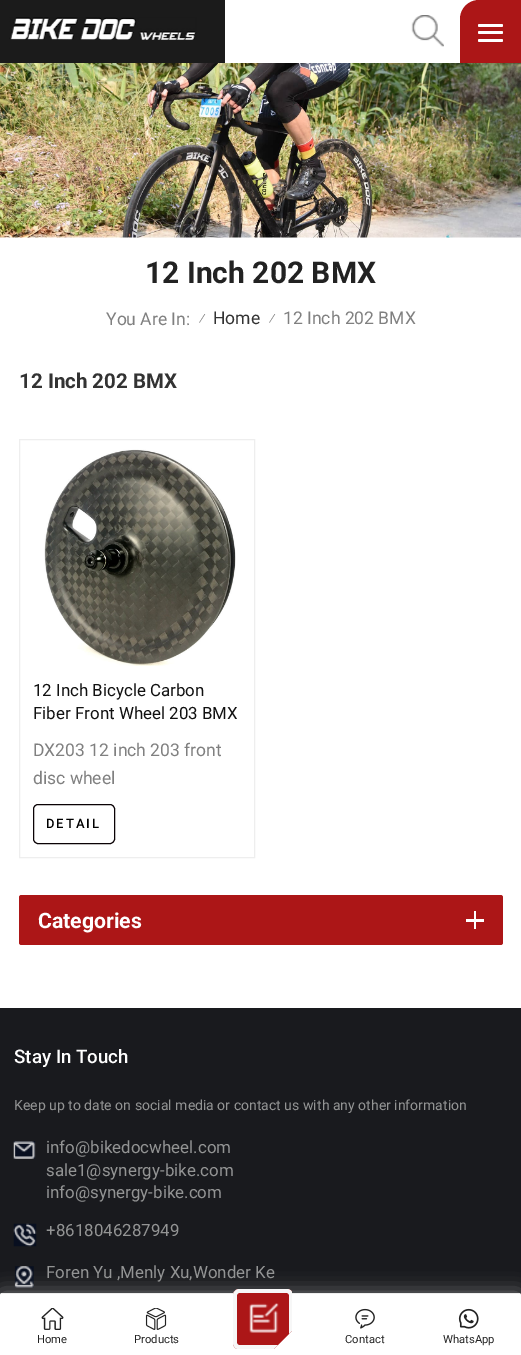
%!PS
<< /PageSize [521 1355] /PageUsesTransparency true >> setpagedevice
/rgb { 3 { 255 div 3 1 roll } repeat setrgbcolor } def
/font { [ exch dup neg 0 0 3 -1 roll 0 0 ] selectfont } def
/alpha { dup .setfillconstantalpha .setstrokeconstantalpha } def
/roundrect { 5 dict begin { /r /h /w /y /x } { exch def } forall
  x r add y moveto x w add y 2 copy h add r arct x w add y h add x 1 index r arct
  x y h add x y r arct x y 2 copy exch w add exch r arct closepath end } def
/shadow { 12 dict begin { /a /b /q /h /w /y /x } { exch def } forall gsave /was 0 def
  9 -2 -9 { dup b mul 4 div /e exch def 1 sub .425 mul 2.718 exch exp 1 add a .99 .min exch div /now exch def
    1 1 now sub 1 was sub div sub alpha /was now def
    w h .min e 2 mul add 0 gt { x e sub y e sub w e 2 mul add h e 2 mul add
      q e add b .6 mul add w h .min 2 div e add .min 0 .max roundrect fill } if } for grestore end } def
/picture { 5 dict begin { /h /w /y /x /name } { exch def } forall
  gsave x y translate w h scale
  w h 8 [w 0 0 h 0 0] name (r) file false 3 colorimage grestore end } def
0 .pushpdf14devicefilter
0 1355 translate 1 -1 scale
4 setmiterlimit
255 255 255 rgb
0 0 521 1355 rectfill
27 27 27 rgb
0 0 225 63 rectfill
(img/1.rgb) 9 17 188 23 picture
(img/2.rgb) 411 15 33 32 picture
172 22 23 rgb
479 0 moveto 521 0 lineto 521 63 lineto 460 63 lineto 460 19 lineto 460 8.5 468.5 0 479 0 curveto closepath fill
255 255 255 rgb
478 31 25 3 1.5 roundrect fill
478 24 25 3 1.5 roundrect fill
478 39 25 3 1.5 roundrect fill
(img/3.rgb) 0 63 521 175 picture
238 238 238 rgb
19.5 439.5 235 418 rectstroke
(img/4.rgb) 44 449 192 217 picture
10 2 5 rgb
33.5 804.5 81 39 4.5 roundrect stroke
172 22 23 rgb
19 895 484 50 2.5 roundrect fill
[
  [466 919 18 3 255 255 255]
  [474 911 2 18 255 255 255]
  [0 1008 521 288 25 26 30]
] { aload pop rgb rectfill } forall
(img/5.rgb) 13 1141 23 18 picture
(img/6.rgb) 13 1223 24 24 picture
(img/7.rgb) 14 1266 20 22 picture
255 255 255 rgb
0 1293 521 62 2.5 9.5 0.4 shadow
2.5 1293 moveto 518.5 1293 lineto 520 1293 521 1294 521 1295.5 curveto 521 1355 lineto 0 1355 lineto 0 1295.5 lineto 0 1294 1 1293 2.5 1293 curveto closepath fill
238 238 238 rgb
1 1293 519 1 rectfill
172 22 23 rgb
239 1289 moveto 287 1289 lineto 289 1289 291 1290 292 1292 curveto 292 1331 lineto 274 1349 lineto 237 1349 lineto 235 1348 233 1346 233 1343 curveto 233 1295 lineto 233 1292 236 1289 239 1289 curveto closepath fill
(img/8.rgb) 249 1303 30 30 picture
247 247 247 rgb
239 1289 moveto 287 1289 lineto 289 1289 291 1290 292 1292 curveto 292 1331 lineto 289 1334 lineto 289 1295 lineto 289 1294 288 1293 287 1293 curveto 239 1293 lineto 238 1293 237 1294 237 1295 curveto 237 1343 lineto 237 1344 238 1345 239 1345 curveto 278 1345 lineto 274 1349 lineto 237 1349 lineto 235 1348 233 1346 233 1343 curveto 233 1295 lineto 233 1292 236 1289 239 1289 curveto closepath fill
(img/9.rgb) 41 1308 23 22 picture
(img/10.rgb) 145 1308 22 22 picture
(img/11.rgb) 355 1308 20 21 picture
(img/12.rgb) 458 1308 21 21 picture
/Roboto-Bold 30 font
34 34 34 rgb
145 283 moveto (12 Inch 202 BMX) show
/Roboto-Regular 17.5 font
128 128 128 rgb
106 325 moveto (You Are In:) show
/Roboto-Italic 11.25 font
199 322 moveto (/) show
/Roboto-Regular 17.5 font
51 51 51 rgb
213 324 moveto (Home) show
/Roboto-Italic 11.25 font
128 128 128 rgb
269 322 moveto (/) show
/Roboto-Regular 17.5 font
283 324 moveto (12 Inch 202 BMX) show
/Roboto-Bold 20.5 font
51 51 51 rgb
19 388 moveto (12 Inch 202 BMX) show
/Roboto-Regular 16.9 font
17 17 17 rgb
33 696 moveto (12 Inch Bicycle Carbon) show
33 719 moveto (Fiber Front Wheel 203 BMX) show
/Roboto-Regular 17.5 font
128 128 128 rgb
33 756 moveto (DX203 12 inch 203 front) show
33 784 moveto (disc wheel) show
/Roboto-Medium 13 font
0 0 0 rgb
46 828 moveto 2 0 (DETAIL) ashow
/Roboto-Bold 21.25 font
255 255 255 rgb
38 928 moveto (Categories) show
/Roboto-Medium 18.75 font
14 1063 moveto (Stay In Touch) show
/Roboto-Regular 14.05 font
147 148 148 rgb
14 1110 moveto (Keep up to date on social media or contact us with any other information) show
/Roboto-Regular 16.9 font
[
  [(info@bikedocwheel.com) 46 1153]
  [(sale1@synergy-bike.com) 46 1176]
  [(info@synergy-bike.com) 46 1198]
  [(+8618046287949) 46 1236]
  [(Foren Yu ,Menly Xu,Wonder Ke) 46 1278]
] { aload pop moveto show } forall
/Roboto-Regular 11.25 font
34 34 34 rgb
[
  [(Home) 37 1343]
  [(Products) 134 1343]
  [(Contact) 345 1343]
  [(WhatsApp) 443 1343]
] { aload pop moveto show } forall
.poppdf14devicefilter showpage
